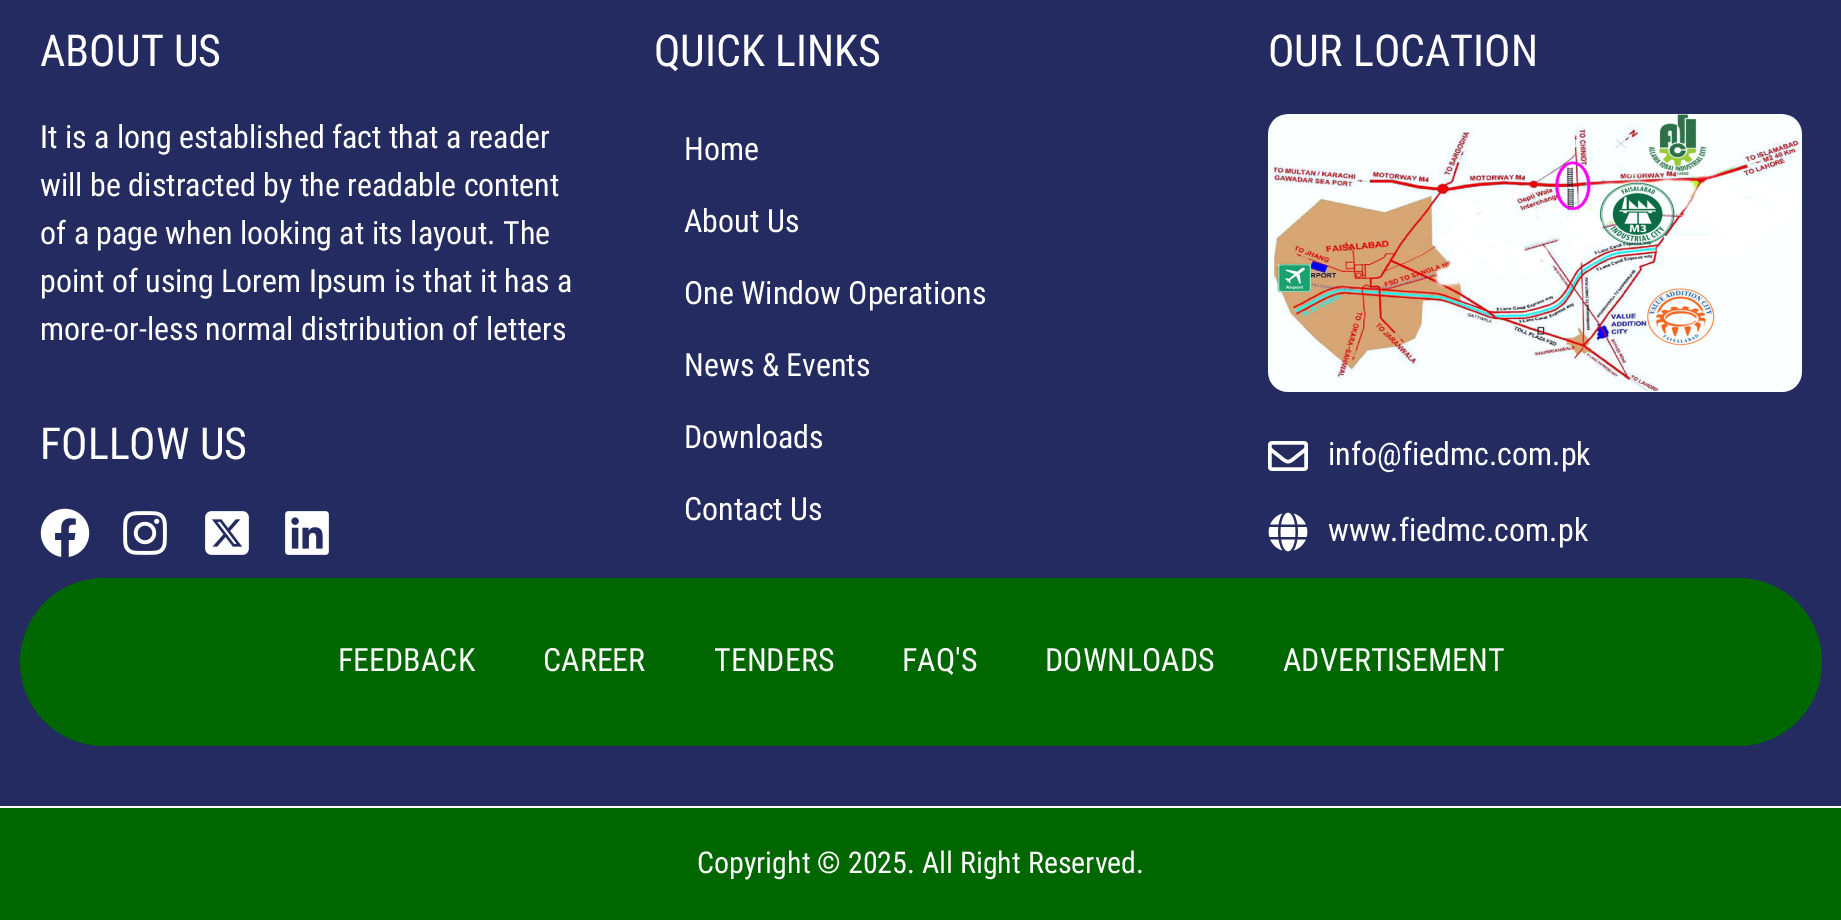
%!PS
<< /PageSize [1841 920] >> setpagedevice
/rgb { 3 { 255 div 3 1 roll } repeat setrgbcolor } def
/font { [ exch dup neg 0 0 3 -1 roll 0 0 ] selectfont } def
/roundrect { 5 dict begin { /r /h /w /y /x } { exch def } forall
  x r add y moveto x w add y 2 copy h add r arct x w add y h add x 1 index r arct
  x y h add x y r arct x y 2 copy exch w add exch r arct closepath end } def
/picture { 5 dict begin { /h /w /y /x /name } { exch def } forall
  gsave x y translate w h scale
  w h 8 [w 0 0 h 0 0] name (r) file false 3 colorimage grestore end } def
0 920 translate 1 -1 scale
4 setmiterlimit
255 255 255 rgb
0 0 1841 920 rectfill
36 43 97 rgb
0 0 1841 806 rectfill
(img/1.rgb) 40 508 50 49 picture
(img/2.rgb) 123 511 44 44 picture
(img/3.rgb) 205 511 44 44 picture
(img/4.rgb) 285 511 44 44 picture
(img/5.rgb) 1268 114 534 278 picture
(img/6.rgb) 1268 441 40 30 picture
(img/7.rgb) 1268 512 40 40 picture
0 102 0 rgb
20 578 1802 168 84 roundrect fill
0 808 1841 112 rectfill
/RobotoCondensed-Regular 44 font
255 255 255 rgb
40 66 moveto (ABOUT US) show
/RobotoCondensed-Regular 32 font
[
  [(It is a long established fact that a reader) 40 148]
  [(will be distracted by the readable content) 40 196]
  [(of a page when looking at its layout. The) 40 244]
  [(point of using Lorem Ipsum is that it has a) 40 292]
  [(more-or-less normal distribution of letters) 40 340]
] { aload pop moveto show } forall
/RobotoCondensed-Regular 44 font
40 459 moveto (FOLLOW US) show
654 66 moveto (QUICK LINKS) show
/RobotoCondensed-Regular 32 font
[
  [(Home) 684 160]
  [(About Us) 684 232]
  [(One Window Operations) 684 304]
  [(News & Events) 684 376]
  [(Downloads) 684 448]
  [(Contact Us) 684 520]
] { aload pop moveto show } forall
/RobotoCondensed-Regular 44 font
1268 66 moveto (OUR LOCATION) show
/RobotoCondensed-Regular 32 font
[
  [(info@fiedmc.com.pk) 1328 465]
  [(www.fiedmc.com.pk) 1328 541]
  [(FEEDBACK) 338 671]
  [(CAREER) 543 671]
  [(TENDERS) 714 671]
  [(FAQ'S) 902 671]
  [(DOWNLOADS) 1045 671]
  [(ADVERTISEMENT) 1283 671]
] { aload pop moveto show } forall
/RobotoCondensed-Regular 30 font
697 873 moveto (Copyright © 2025. All Right Reserved.) show
showpage
